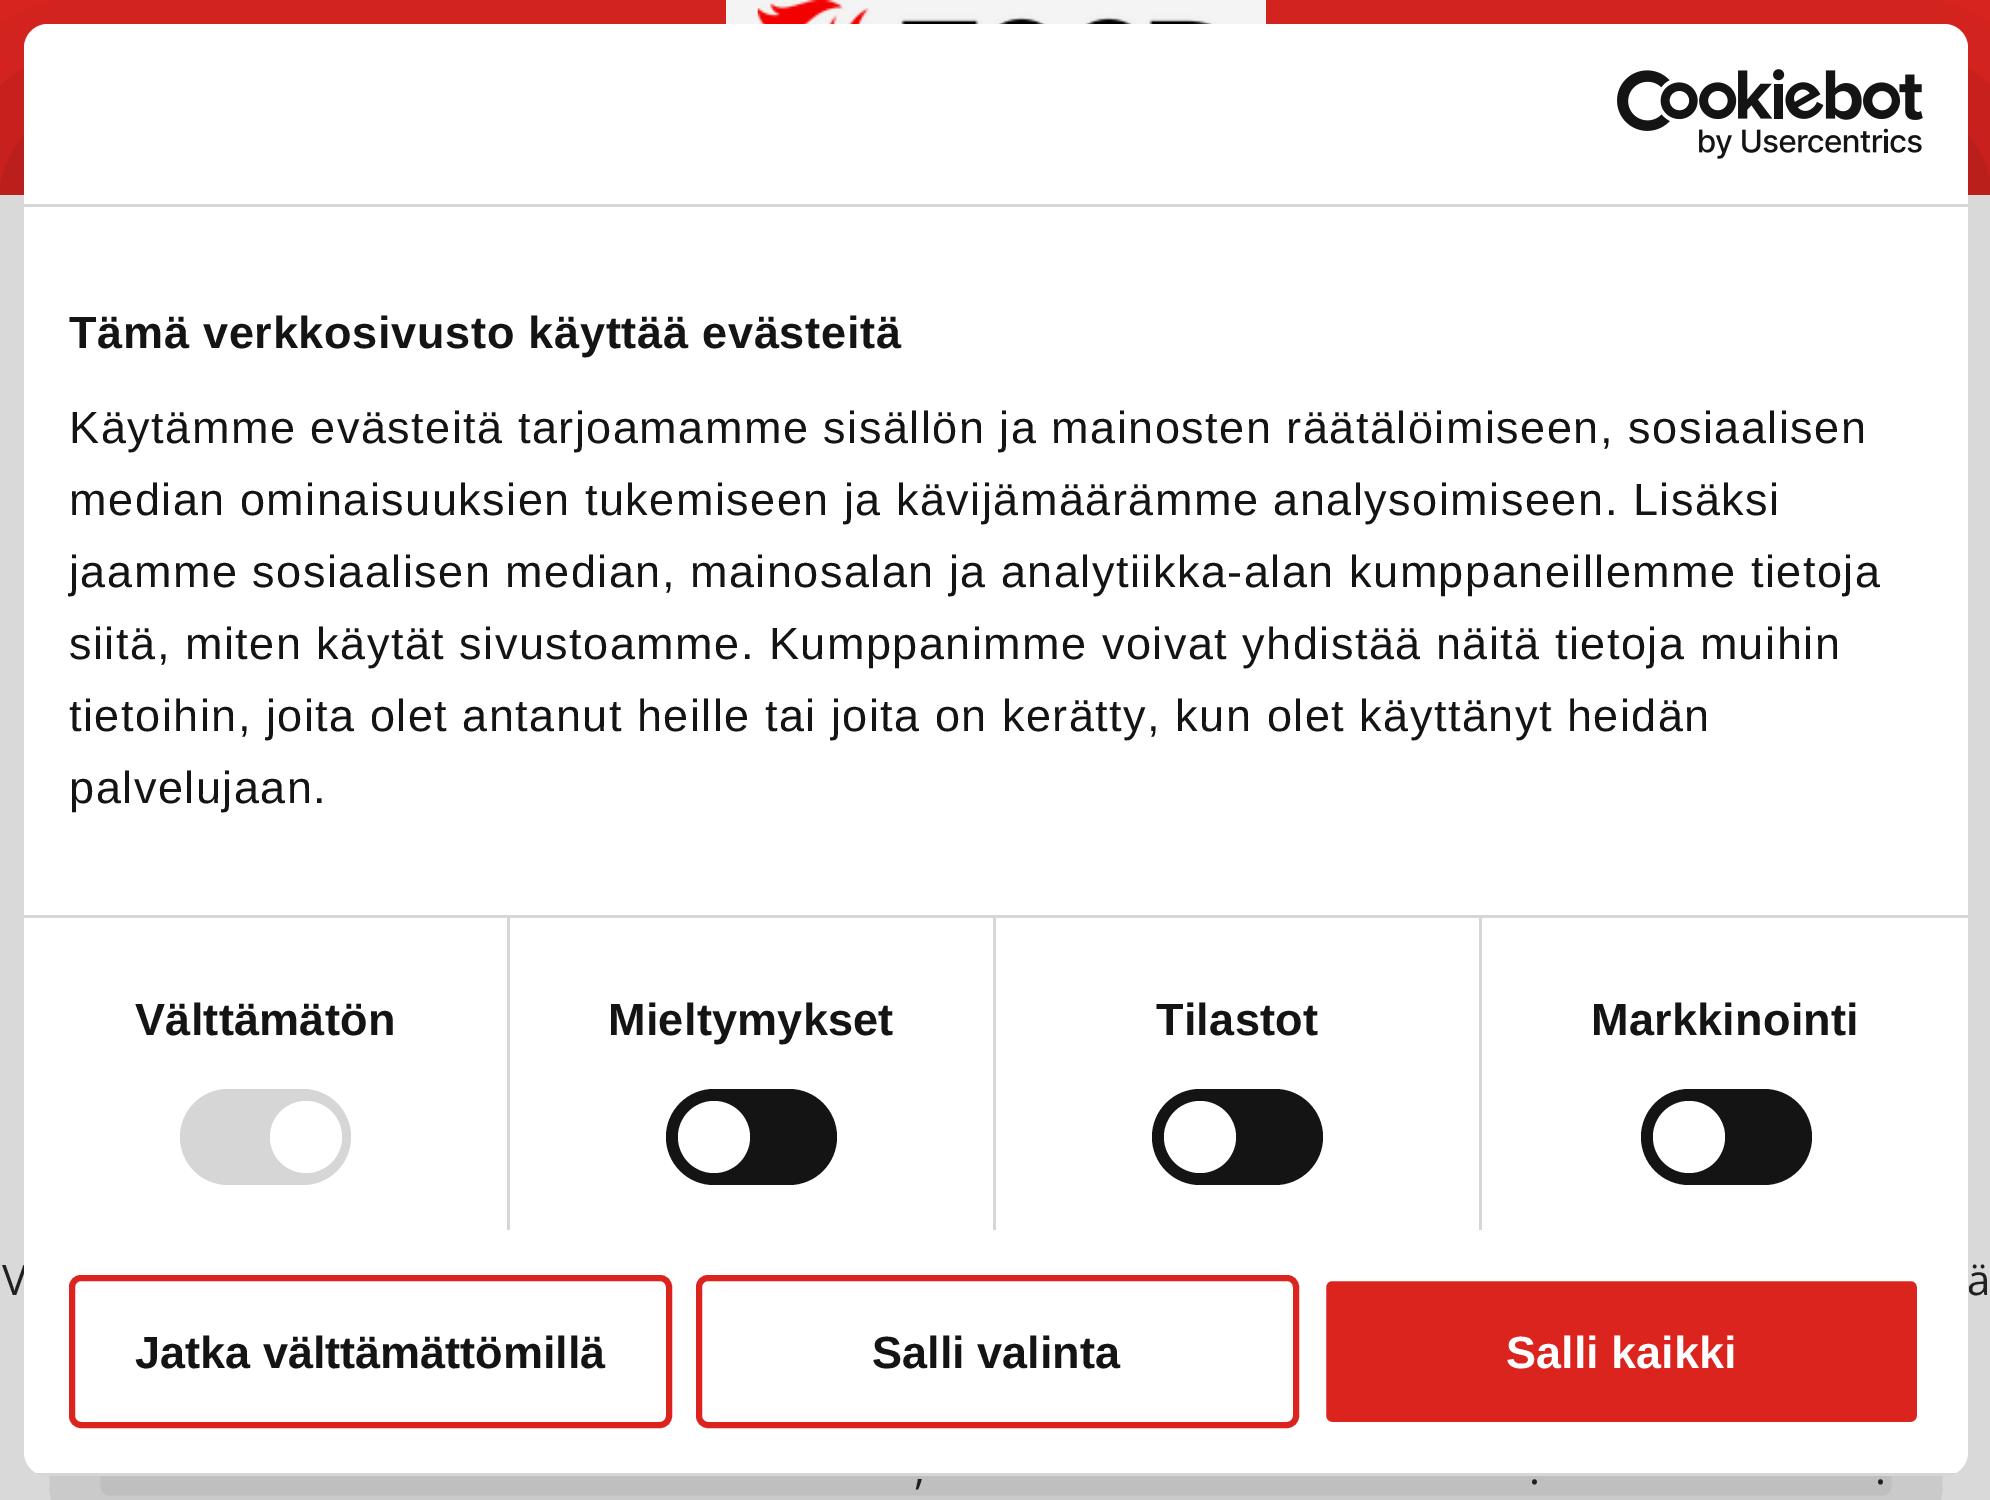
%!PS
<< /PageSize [1990 1500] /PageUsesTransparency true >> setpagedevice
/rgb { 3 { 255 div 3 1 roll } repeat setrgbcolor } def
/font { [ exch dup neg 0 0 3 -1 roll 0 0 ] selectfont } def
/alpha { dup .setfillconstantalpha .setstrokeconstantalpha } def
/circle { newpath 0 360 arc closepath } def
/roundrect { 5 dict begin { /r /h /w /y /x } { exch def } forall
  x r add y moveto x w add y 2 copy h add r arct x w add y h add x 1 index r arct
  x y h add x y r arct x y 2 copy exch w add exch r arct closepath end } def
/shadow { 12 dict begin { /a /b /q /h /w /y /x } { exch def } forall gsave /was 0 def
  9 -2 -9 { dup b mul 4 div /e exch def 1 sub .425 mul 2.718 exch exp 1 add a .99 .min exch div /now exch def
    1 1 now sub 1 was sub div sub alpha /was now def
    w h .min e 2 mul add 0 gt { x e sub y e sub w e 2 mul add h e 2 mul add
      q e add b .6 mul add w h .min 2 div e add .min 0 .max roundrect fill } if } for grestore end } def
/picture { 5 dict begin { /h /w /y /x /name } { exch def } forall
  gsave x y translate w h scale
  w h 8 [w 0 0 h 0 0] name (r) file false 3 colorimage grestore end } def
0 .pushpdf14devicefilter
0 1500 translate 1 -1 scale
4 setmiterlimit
255 255 255 rgb
0 0 1990 1500 rectfill
220 36 31 rgb
0 0 1990 195 rectfill
255 255 255 rgb
726 0 540 24 rectfill
(img/2.rgb) 757 0 478 24 picture
0 0 0 rgb
24 120 1944 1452 24 102 0.3 shadow
/OpenSans-Regular 42 font
32 32 32 rgb
2 1295 moveto (V) show
255 255 255 rgb
24 24 1944 1452 24 roundrect fill
220 36 31 rgb
1323 1278 597 147 9 roundrect gsave fill grestore
255 255 255 rgb
6 setlinewidth
stroke
/LiberationSans-Bold 45 font
1506 1368 moveto (Salli kaikki) show
220 36 31 rgb
699 1278 597 147 9 roundrect stroke
20 20 20 rgb
872 1368 moveto (Salli valinta) show
220 36 31 rgb
72 1278 597 147 9 roundrect stroke
20 20 20 rgb
135 1368 moveto (Jatka välttämättömillä) show
gsave
24 24 1944 1452 24 roundrect clip newpath
214 214 214 rgb
36 1473 1920 3 rectfill
grestore
1641 1089 171 96 48 roundrect fill
255 255 255 rgb
1689 1137 36 circle fill
20 20 20 rgb
1152 1089 171 96 48 roundrect fill
255 255 255 rgb
1200 1137 36 circle fill
20 20 20 rgb
666 1089 171 96 48 roundrect fill
255 255 255 rgb
714 1137 36 circle fill
214 214 214 rgb
180 1089 171 96 48 roundrect fill
255 255 255 rgb
306 1137 36 circle fill
/LiberationSans-Regular 45 font
20 20 20 rgb
69 803 moveto 1.5 0 (palvelujaan.) ashow
69 731 moveto 1.5 0 (tietoihin, joita olet antanut heille tai joita on kerätty, kun olet käyttänyt heidän) ashow
69 659 moveto 1.5 0 (siitä, miten käytät sivustoamme. Kumppanimme voivat yhdistää näitä tietoja muihin) ashow
69 587 moveto 1.5 0 (jaamme sosiaalisen median, mainosalan ja analytiikka-alan kumppaneillemme tietoja) ashow
69 515 moveto 1.5 0 (median ominaisuuksien tukemiseen ja kävijämäärämme analysoimiseen. Lisäksi) ashow
69 443 moveto 1.5 0 (Käytämme evästeitä tarjoamamme sisällön ja mainosten räätälöimiseen, sosiaalisen) ashow
/LiberationSans-Bold 45 font
69 348 moveto 0.75 0 (Tämä verkkosivusto käyttää evästeitä) ashow
214 214 214 rgb
24 915 1944 3 rectfill
20 20 20 rgb
1591 1035 moveto 0.25 0 (Markkinointi) ashow
1156 1035 moveto 0.25 0 (Tilastot) ashow
214 214 214 rgb
1479 918 3 312 rectfill
20 20 20 rgb
608 1035 moveto 0.25 0 (Mieltymykset) ashow
214 214 214 rgb
993 918 3 312 rectfill
20 20 20 rgb
135 1035 moveto 0.25 0 (Välttämätön) ashow
214 214 214 rgb
507 918 3 312 rectfill
(img/1.rgb) 1617 69 306 90 picture
24 204 1944 3 rectfill
/OpenSans-Regular 42 font
32 32 32 rgb
[
  [(ä) 1967 1295]
  [(,) 914 1484]
  [(.) 1529 1484]
  [(.) 1875 1484]
] { aload pop moveto show } forall
.poppdf14devicefilter showpage
